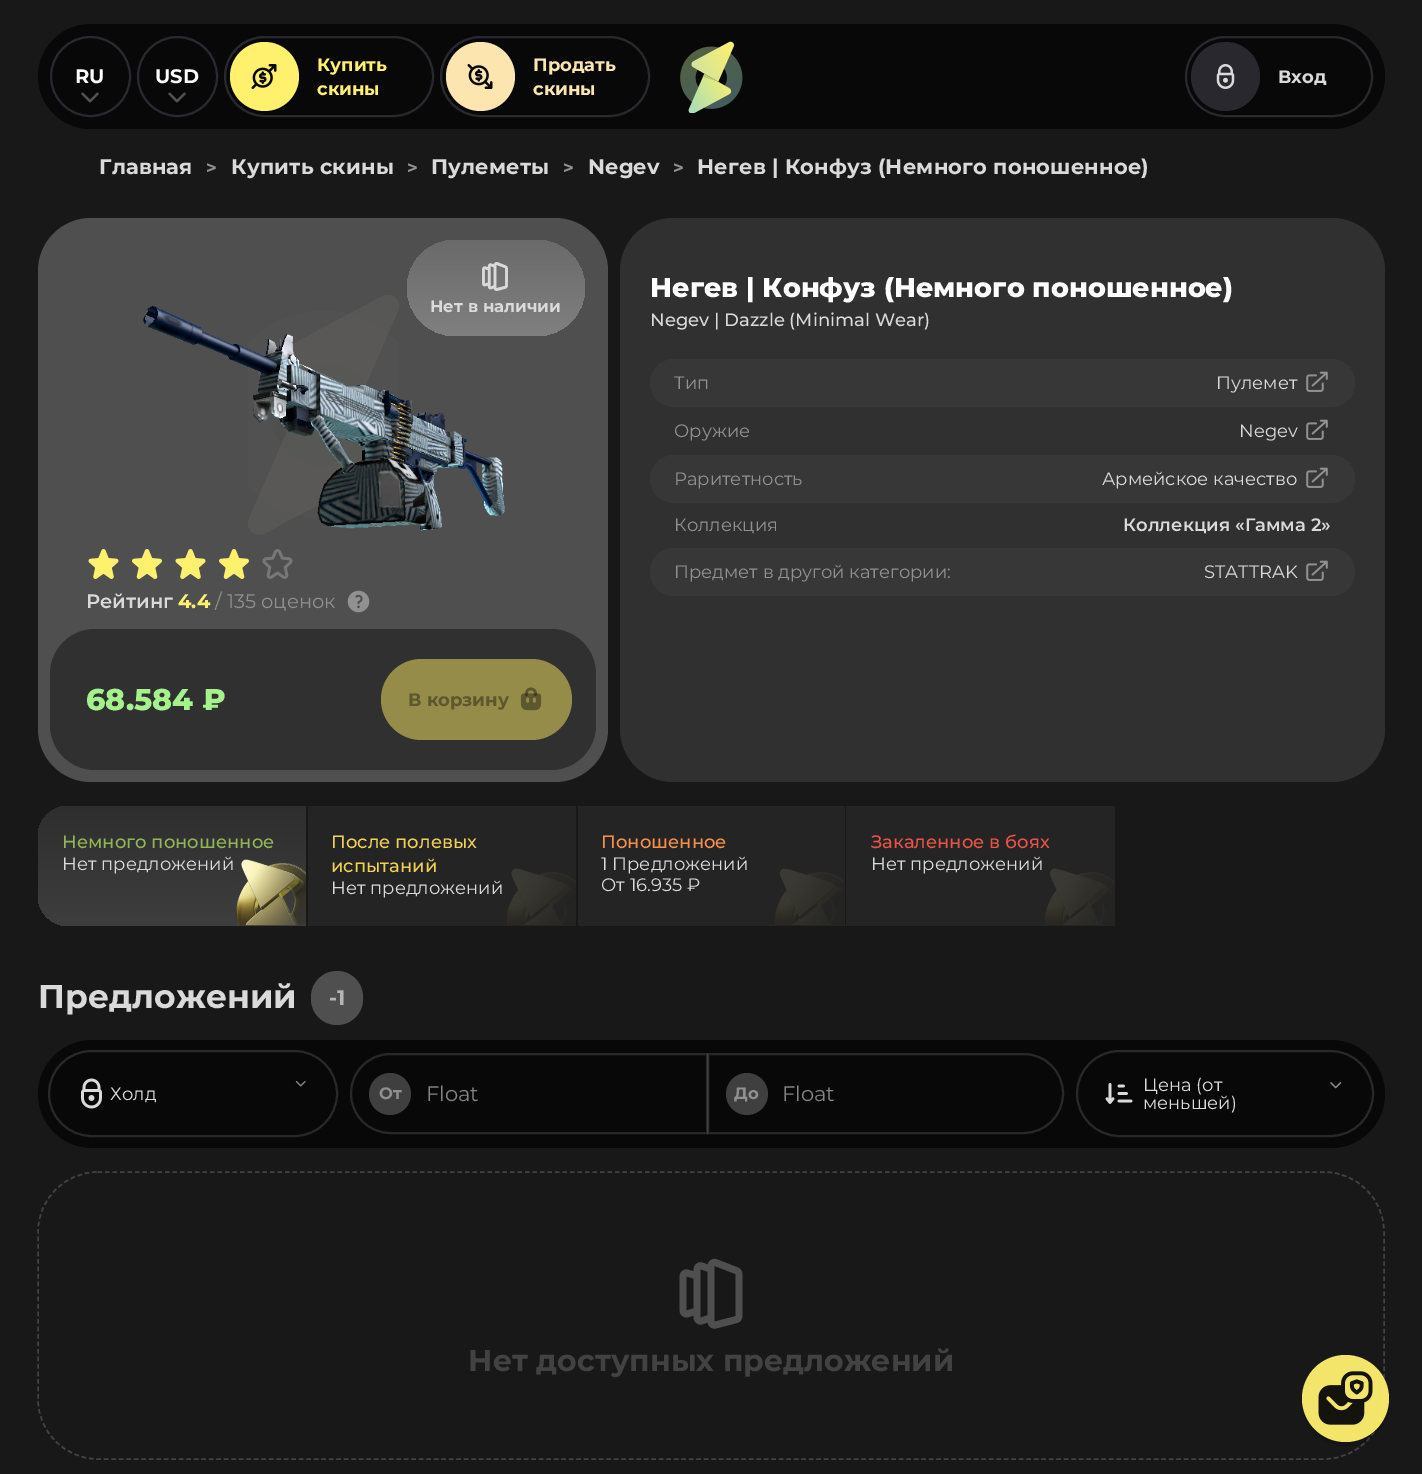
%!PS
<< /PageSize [1422 1474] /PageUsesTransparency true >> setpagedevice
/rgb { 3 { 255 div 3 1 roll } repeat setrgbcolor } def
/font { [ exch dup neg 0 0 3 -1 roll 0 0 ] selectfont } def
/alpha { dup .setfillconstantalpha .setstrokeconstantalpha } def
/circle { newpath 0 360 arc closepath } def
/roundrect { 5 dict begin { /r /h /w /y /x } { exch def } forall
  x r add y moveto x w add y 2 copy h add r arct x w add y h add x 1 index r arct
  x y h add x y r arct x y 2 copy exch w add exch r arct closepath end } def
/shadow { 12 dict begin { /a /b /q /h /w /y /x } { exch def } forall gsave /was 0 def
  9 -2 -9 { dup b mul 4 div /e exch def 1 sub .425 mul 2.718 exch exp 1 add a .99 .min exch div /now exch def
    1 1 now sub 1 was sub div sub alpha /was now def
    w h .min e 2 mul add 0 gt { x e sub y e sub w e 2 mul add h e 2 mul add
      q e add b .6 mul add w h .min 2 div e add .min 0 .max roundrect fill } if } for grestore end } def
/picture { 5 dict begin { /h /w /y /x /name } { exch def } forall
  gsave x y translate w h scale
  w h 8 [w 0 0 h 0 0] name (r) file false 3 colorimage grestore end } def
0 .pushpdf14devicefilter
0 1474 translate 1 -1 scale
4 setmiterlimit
24 24 24 rgb
0 0 1422 1474 rectfill
8 8 8 rgb
38 24 1347 105 52.5 roundrect fill
41 41 49 rgb
2 setlinewidth
90.5 76.5 39.5 circle stroke
(img/1.rgb) 81 92 18 11 picture
177.5 76.5 39.5 circle stroke
(img/1.rgb) 168 92 18 11 picture
40 40 46 rgb
225 37 208 79 39.5 roundrect stroke
255 240 109 rgb
264.5 76.5 34.5 circle fill
(img/2.rgb) 251 64 26 25 picture
40 40 46 rgb
441 37 208 79 39.5 roundrect stroke
253 229 176 rgb
480.5 76.5 34.5 circle fill
(img/3.rgb) 467 64 26 25 picture
(img/4.rgb) 680 41 63 72 picture
40 40 46 rgb
1186 37 186 79 39.5 roundrect stroke
1225.5 76.5 34.5 circle fill
(img/5.rgb) 1216 64 19 25 picture
79 79 79 rgb
38 218 570 564 53 roundrect fill
(img/6.rgb) 248 295 151 240 picture
(img/7.rgb) 143 305 362 226 picture
gsave 407 240 178 96 48 roundrect clip newpath
<< /ShadingType 2 /ColorSpace /DeviceRGB /Coords [496 240 496 336] /Extend [true true] /Function << /FunctionType 2 /Domain [0 1] /C0 [0.416 0.416 0.416] /C1 [0.502 0.502 0.502] /N 1 >> >> shfill grestore
(img/8.rgb) 482 262 26 29 picture
(img/9.rgb) 88 549 31 30 picture
(img/10.rgb) 132 549 30 30 picture
(img/9.rgb) 175 549 31 30 picture
(img/10.rgb) 219 549 30 30 picture
(img/11.rgb) 262 549 31 30 picture
(img/12.rgb) 347 590 23 23 picture
48 48 48 rgb
50 629 546 141 45 roundrect fill
148 140 72 rgb
381 659 191 81 40.5 roundrect fill
(img/13.rgb) 520 687 22 24 picture
48 48 48 rgb
620 218 765 564 53 roundrect fill
55 55 55 rgb
650 359 705 48 24 roundrect fill
(img/14.rgb) 1306 371 22 21 picture
(img/15.rgb) 1306 419 22 21 picture
650 455 705 48 24 roundrect fill
(img/14.rgb) 1306 467 22 21 picture
650 548 705 48 24 roundrect fill
(img/14.rgb) 1306 560 22 21 picture
gsave 68 806 moveto 306 806 lineto 306 926 lineto 68 926 lineto 51.5 926 38 912.5 38 896 curveto 38 836 lineto 38 819.5 51.5 806 68 806 curveto closepath clip newpath
<< /ShadingType 2 /ColorSpace /DeviceRGB /Coords [172 806 172 926] /Extend [true true] /Function << /FunctionType 2 /Domain [0 1] /C0 [0.18 0.18 0.18] /C1 [0.243 0.243 0.243] /N 1 >> >> shfill grestore
(img/16.rgb) 236 859 70 67 picture
36 36 36 rgb
308 806 268 120 rectfill
(img/17.rgb) 507 868 69 57 picture
578 806 267 120 rectfill
(img/18.rgb) 775 868 69 57 picture
846 806 269 120 rectfill
(img/18.rgb) 1045 868 69 57 picture
79 79 79 rgb
311 971 52 54 26 roundrect fill
8 8 8 rgb
38 1040 1347 108 54 roundrect fill
40 40 40 rgb
49 1051 288 85 42.5 roundrect stroke
(img/19.rgb) 81 1078 21 31 picture
(img/20.rgb) 295 1081 11 6 picture
63 63 63 rgb
390 1094 21 circle fill
40 40 40 rgb
390.5 1054 moveto 707 1054 lineto 707 1133 lineto 390.5 1133 lineto 368.5 1133 351 1115.5 351 1093.5 curveto 351 1071.5 368.5 1054 390.5 1054 curveto closepath stroke
63 63 63 rgb
747 1094 21 circle fill
0.2 alpha
168 168 168 rgb
708 1054 moveto 1023.5 1054 lineto 1045.5 1054 1063 1071.5 1063 1093.5 curveto 1063 1115.5 1045.5 1133 1023.5 1133 curveto 708 1133 lineto closepath stroke
1 alpha
40 40 40 rgb
1077 1051 296 85 42.5 roundrect stroke
(img/21.rgb) 1105 1083 28 21 picture
(img/22.rgb) 1330 1082 12 7 picture
66 66 66 rgb
1.5 setlinewidth
[4.5 3] 0 setdash
97.5 1172 moveto 1324.5 1172 lineto 1357 1172 1384 1199 1384 1231.5 curveto 1384 1399.5 lineto 1384 1432 1357 1459 1324.5 1459 curveto 97.5 1459 lineto 65 1459 38 1432 38 1399.5 curveto 38 1231.5 lineto 38 1199 65 1172 97.5 1172 curveto closepath stroke
(img/23.rgb) 679 1258 64 71 picture
gsave
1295 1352 moveto 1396 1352 lineto 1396 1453 lineto 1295 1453 lineto closepath 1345.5 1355 moveto 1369.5 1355 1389 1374.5 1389 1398.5 curveto 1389 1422.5 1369.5 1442 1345.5 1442 curveto 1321.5 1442 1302 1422.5 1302 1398.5 curveto 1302 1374.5 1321.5 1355 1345.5 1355 curveto closepath eoclip newpath
0 0 0 rgb
1302 1359 87 87 43.5 2 0.19 shadow
grestore
0.95 alpha
255 240 109 rgb
1345.5 1398.5 43.5 circle fill
1 alpha
(img/24.rgb) 1318 1371 55 54 picture
/Montserrat-Bold 19.5 font
255 255 255 rgb
75 83 moveto (RU) show
155 83 moveto (USD) show
/Montserrat-Bold 18 font
255 240 109 rgb
317 71 moveto (Купить) show
317 95 moveto (скины) show
253 229 176 rgb
533 71 moveto (Продать) show
533 95 moveto (скины) show
218 218 218 rgb
1278 83 moveto (Вход) show
/Montserrat-Bold 21 font
99 174 moveto 0.15 0 (Главная) ashow
/Montserrat-Bold 18 font
144 144 144 rgb
206 174 moveto 0.15 0 (>) ashow
/Montserrat-Bold 21 font
218 218 218 rgb
231 174 moveto 0.15 0 (Купить скины) ashow
/Montserrat-Bold 18 font
144 144 144 rgb
407 174 moveto 0.15 0 (>) ashow
/Montserrat-Bold 21 font
218 218 218 rgb
431 174 moveto 0.15 0 (Пулеметы) ashow
/Montserrat-Bold 18 font
144 144 144 rgb
563 174 moveto 0.15 0 (>) ashow
/Montserrat-Bold 21 font
218 218 218 rgb
588 174 moveto 0.15 0 (Negev) ashow
/Montserrat-Bold 18 font
144 144 144 rgb
673 174 moveto 0.15 0 (>) ashow
/Montserrat-Bold 21 font
218 218 218 rgb
697 174 moveto 0.15 0 (Негев | Конфуз \(Немного поношенное\)) ashow
/Montserrat-Bold 16.5 font
430 312 moveto (Нет в наличии) show
/Montserrat-SemiBold 19.5 font
86 608 moveto (Рейтинг) show
/Montserrat-Bold 19.5 font
255 240 109 rgb
178 608 moveto (4.4) show
/Montserrat-Regular 19.5 font
144 144 144 rgb
215 608 moveto (/ 135 оценок) show
/Montserrat-ExtraBold 30 font
165 241 139 rgb
86 710 moveto (68.584 ₽) show
/Montserrat-Bold 18 font
92 87 46 rgb
408 706 moveto (В корзину) show
/Montserrat-ExtraBold 27 font
255 255 255 rgb
650 297 moveto (Негев | Конфуз \(Немного поношенное\)) show
/Montserrat-Medium 18 font
218 218 218 rgb
650 326 moveto (Negev | Dazzle \(Minimal Wear\)) show
/Montserrat-Regular 18 font
144 144 144 rgb
674 389 moveto (Тип) show
218 218 218 rgb
1216 389 moveto (Пулемет) show
144 144 144 rgb
674 437 moveto (Оружие) show
218 218 218 rgb
1239 437 moveto (Negev) show
144 144 144 rgb
674 485 moveto (Раритетность) show
218 218 218 rgb
1102 485 moveto (Армейское качество) show
144 144 144 rgb
674 531 moveto (Коллекция) show
/Montserrat-SemiBold 18 font
218 218 218 rgb
1123 531 moveto (Коллекция «Гамма 2») show
/Montserrat-Regular 18 font
144 144 144 rgb
674 578 moveto (Предмет в другой категории:) show
218 218 218 rgb
1204 578 moveto (STATTRAK) show
/Montserrat-Medium 18 font
145 182 83 rgb
62 848 moveto (Немного поношенное) show
/Montserrat-Regular 18 font
218 218 218 rgb
62 870 moveto (Нет предложений) show
/Montserrat-Medium 18 font
241 209 84 rgb
331 848 moveto (После полевых) show
331 872 moveto (испытаний) show
/Montserrat-Regular 18 font
218 218 218 rgb
331 894 moveto (Нет предложений) show
/Montserrat-Medium 18 font
251 144 74 rgb
601 848 moveto (Поношенное) show
/Montserrat-Regular 18 font
218 218 218 rgb
601 870 moveto (1 Предложений) show
601 891 moveto (От 16.935 ₽) show
/Montserrat-Medium 18 font
235 82 72 rgb
871 848 moveto (Закаленное в боях) show
/Montserrat-Regular 18 font
218 218 218 rgb
871 870 moveto (Нет предложений) show
/Montserrat-Bold 33 font
38 1008 moveto (Предложений) show
/Montserrat-Bold 21 font
181 181 181 rgb
329 1005 moveto (-1) show
/Montserrat-Regular 18 font
218 218 218 rgb
110 1100 moveto (Холд) show
/Montserrat-Bold 16.5 font
144 144 144 rgb
379 1099 moveto (От) show
/Montserrat-Regular 21 font
133 133 133 rgb
426 1101 moveto (Float) show
/Montserrat-Bold 16.5 font
144 144 144 rgb
734 1099 moveto (До) show
/Montserrat-Regular 21 font
133 133 133 rgb
782 1101 moveto (Float) show
/Montserrat-Regular 18 font
218 218 218 rgb
1143 1091 moveto (Цена \(от) show
1143 1109 moveto (меньшей\)) show
/Montserrat-Bold 30 font
66 66 66 rgb
468 1371 moveto (Нет доступных предложений) show
.poppdf14devicefilter showpage
